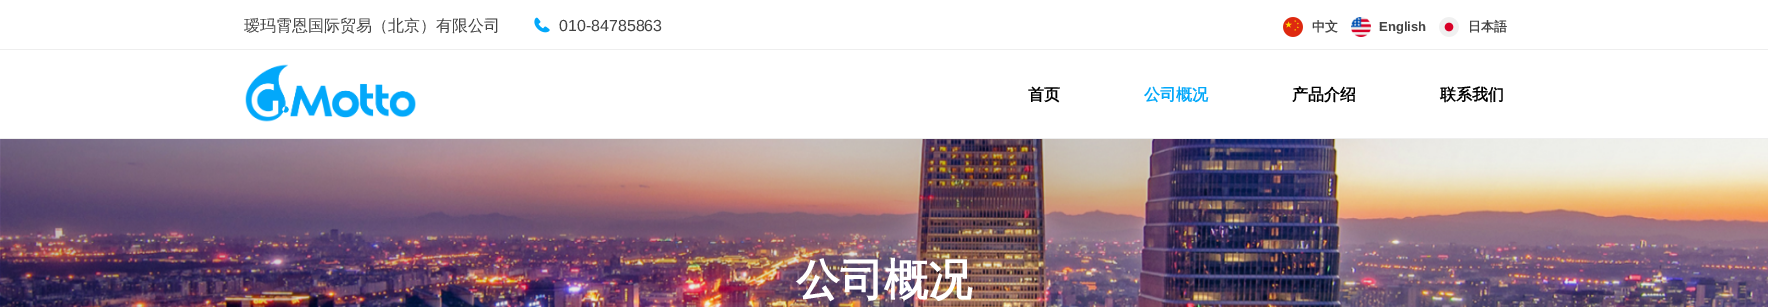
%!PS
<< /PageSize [1768 307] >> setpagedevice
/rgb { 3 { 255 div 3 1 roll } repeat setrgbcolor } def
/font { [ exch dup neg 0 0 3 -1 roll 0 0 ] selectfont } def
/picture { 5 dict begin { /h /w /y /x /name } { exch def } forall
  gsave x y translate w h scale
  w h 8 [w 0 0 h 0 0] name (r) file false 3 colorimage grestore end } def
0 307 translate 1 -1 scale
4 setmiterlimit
255 255 255 rgb
0 0 1768 307 rectfill
(img/1.rgb) 534 17 16 16 picture
(img/2.rgb) 1283 17 20 20 picture
(img/3.rgb) 1351 17 20 20 picture
(img/4.rgb) 1439 17 20 20 picture
(img/5.rgb) 245 64 171 58 picture
238 238 238 rgb
0 49 1768 1 rectfill
0 138 1768 1 rectfill
(img/6.rgb) 0 139 1768 168 picture
/WenQuanYiZenHei-Medium 16 font
68 68 68 rgb
244 31 moveto (瑷玛霄恩国际贸易（北京）有限公司) show
/LiberationSans-Regular 16 font
559 31 moveto (010-84785863) show
/WenQuanYiZenHei-Bold 13 font
1312 31 moveto (中文) show
/LiberationSans-Bold 13 font
1379 31 moveto (English) show
/WenQuanYiZenHei-Bold 13 font
1468 31 moveto (日本語) show
/WenQuanYiZenHei-Bold 16 font
0 0 0 rgb
1028 100 moveto (首页) show
2 168 250 rgb
1144 100 moveto (公司概况) show
0 0 0 rgb
1292 100 moveto (产品介绍) show
1440 100 moveto (联系我们) show
/WenQuanYiZenHei-Bold 44 font
255 255 255 rgb
796 295 moveto (公司概况) show
showpage
